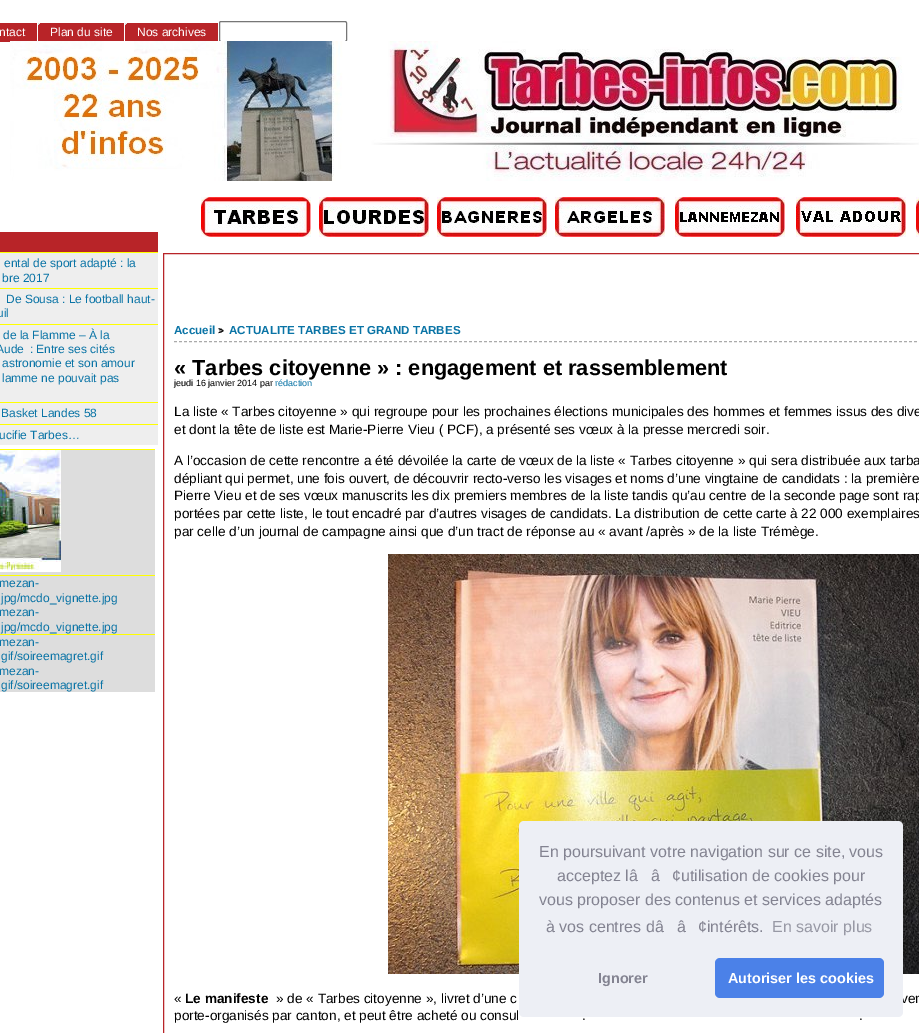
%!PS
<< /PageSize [919 1033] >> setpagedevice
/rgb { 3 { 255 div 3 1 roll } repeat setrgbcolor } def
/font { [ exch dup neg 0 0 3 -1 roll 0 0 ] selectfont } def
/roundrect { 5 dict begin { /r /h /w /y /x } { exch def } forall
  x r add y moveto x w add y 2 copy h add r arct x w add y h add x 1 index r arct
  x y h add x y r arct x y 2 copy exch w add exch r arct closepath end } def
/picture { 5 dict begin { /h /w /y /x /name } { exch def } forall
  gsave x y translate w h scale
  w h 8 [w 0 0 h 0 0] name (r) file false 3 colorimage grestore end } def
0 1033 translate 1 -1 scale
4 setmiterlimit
255 255 255 rgb
0 0 919 1033 rectfill
184 36 40 rgb
0 23 37 19 rectfill
38 23 86 18 rectfill
(img/1.rgb) 38 23 2 2 picture
125 23 93 18 rectfill
(img/1.rgb) 125 23 2 2 picture
118 118 118 rgb
219.5 21.5 127 20 1.5 roundrect stroke
[
  [0 232 158 20 184 36 40]
  [0 252 158 1 255 255 0]
  [0 253 158 35 238 238 238]
  [0 288 158 1 255 255 0]
  [0 289 158 35 238 238 238]
  [0 324 158 1 255 255 0]
  [0 325 158 77 238 238 238]
  [0 402 158 1 255 255 0]
  [0 403 158 21 238 238 238]
  [0 424 158 1 255 255 0]
  [0 425 158 20 238 238 238]
  [0 450 155 125 221 221 221]
  [0 449 155 1 255 255 0]
] { aload pop rgb rectfill } forall
(img/2.rgb) 0 450 61 122 picture
[
  [0 576 155 58 221 221 221]
  [0 575 155 1 255 255 0]
  [0 635 155 57 221 221 221]
  [0 634 155 1 255 255 0]
] { aload pop rgb rectfill } forall
(img/3.rgb) 10 41 909 140 picture
(img/4.rgb) 201 197 110 40 picture
(img/5.rgb) 319 197 110 40 picture
(img/6.rgb) 437 197 110 40 picture
(img/7.rgb) 555 197 110 40 picture
(img/8.rgb) 675 197 110 40 picture
(img/9.rgb) 796 197 110 40 picture
(img/10.rgb) 916 197 3 40 picture
184 36 40 rgb
163.5 253.5 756 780 rectstroke
167 167 167 rgb
219 328 3 5 rectfill
170 170 170 rgb
[3 2] 0 setdash
174 341.5 moveto 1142 341.5 lineto stroke
(img/11.rgb) 388 554 531 420 picture
/LiberationSans-Regular 12 font
255 255 255 rgb
[
  [(ntact) -1 36]
  [(Plan du site) 50 36]
  [(Nos archives) 137 36]
] { aload pop moveto show } forall
10 116 166 rgb
[
  [(ental de sport adapté : la) 4 267]
  [(bre 2017) 2 282]
  [(De Sousa : Le football haut-) 6 303]
  [(uil) -3 317]
  [(de la Flamme – À la) 3 339]
  [(Aude  : Entre ses cités) -4 353]
  [(astronomie et son amour) 2 367]
  [(lamme ne pouvait pas) 2 382]
  [(Basket Landes 58) 1 417]
  [(ucifie Tarbes…) -1 439]
  [(mezan-) -1 587]
  [(jpg/mcdo_vignette.jpg) 1 602]
  [(mezan-) -1 616]
  [(jpg/mcdo_vignette.jpg) 1 631]
  [(mezan-) -1 646]
  [(gif/soireemagret.gif) 1 660]
  [(mezan-) -1 675]
  [(gif/soireemagret.gif) 1 689]
] { aload pop moveto show } forall
/LiberationSans-Bold 11.6 font
174 334 moveto (Accueil) show
/LiberationSans-Bold 10 font
0 0 0 rgb
218 334 moveto (>) show
/LiberationSans-Bold 11.6 font
10 116 166 rgb
229 334 moveto (ACTUALITE TARBES ET GRAND TARBES) show
/LiberationSans-Bold 21.75 font
0 0 0 rgb
174 375 moveto (« Tarbes citoyenne » : engagement et rassemblement) show
/LiberationSans-Regular 9 font
174 386 moveto (jeudi 16 janvier 2014 par) show
10 116 166 rgb
275 386 moveto (rédaction) show
/LiberationSans-Regular 13.6 font
0 0 0 rgb
[
  [(La liste « Tarbes citoyenne » qui regroupe pour les prochaines élections municipales des hommes et femmes issus des dive) 174 416]
  [(et dont la tête de liste est Marie-Pierre Vieu \( PCF\), a présenté ses vœux à la presse mercredi soir.) 174 434]
  [(A l’occasion de cette rencontre a été dévoilée la carte de vœux de la liste « Tarbes citoyenne » qui sera distribuée aux tarba) 174 465]
  [(dépliant qui permet, une fois ouvert, de découvrir recto-verso les visages et noms d’une vingtaine de candidats : la première) 174 483]
  [(Pierre Vieu et de ses vœux manuscrits les dix premiers membres de la liste tandis qu’au centre de la seconde page sont rap) 174 500]
  [(portées par cette liste, le tout encadré par d’autres visages de candidats. La distribution de cette carte à 22 000 exemplaires) 174 518]
  [(par celle d’un journal de campagne ainsi que d’un tract de réponse au « avant /après » de la liste Trémège.) 174 536]
  [(«) 174 1003]
] { aload pop moveto show } forall
/LiberationSans-Bold 13.6 font
185 1003 moveto (Le manifeste) show
/LiberationSans-Regular 13.6 font
[
  [(» de « Tarbes citoyenne », livret d’une c) 276 1003]
  [(ver) 901 1003]
  [(porte-organisés par canton, et peut être acheté ou consul) 174 1020]
  [(.) 582 1020]
  [(.) 859 1020]
] { aload pop moveto show } forall
237 239 245 rgb
519 821 384 196 5 roundrect fill
/LiberationSans-Regular 16 font
131 131 145 rgb
[
  [(En poursuivant votre navigation sur ce site, vous) 539 857]
  [(acceptez lâ) 557 881]
  [(â) 651 881]
  [(¢utilisation de cookies pour) 672 881]
  [(vous proposer des contenus et services adaptés) 539 905]
  [(à vos centres dâ) 546 932]
  [(â) 677 932]
  [(¢intérêts.) 698 932]
] { aload pop moveto show } forall
152 153 165 rgb
772 932 moveto (En savoir plus) show
/LiberationSans-Bold 14.4 font
131 131 145 rgb
598 983 moveto (Ignorer) show
75 129 232 rgb
715 958 169 40 5 roundrect fill
255 255 255 rgb
728 983 moveto (Autoriser les cookies) show
showpage
